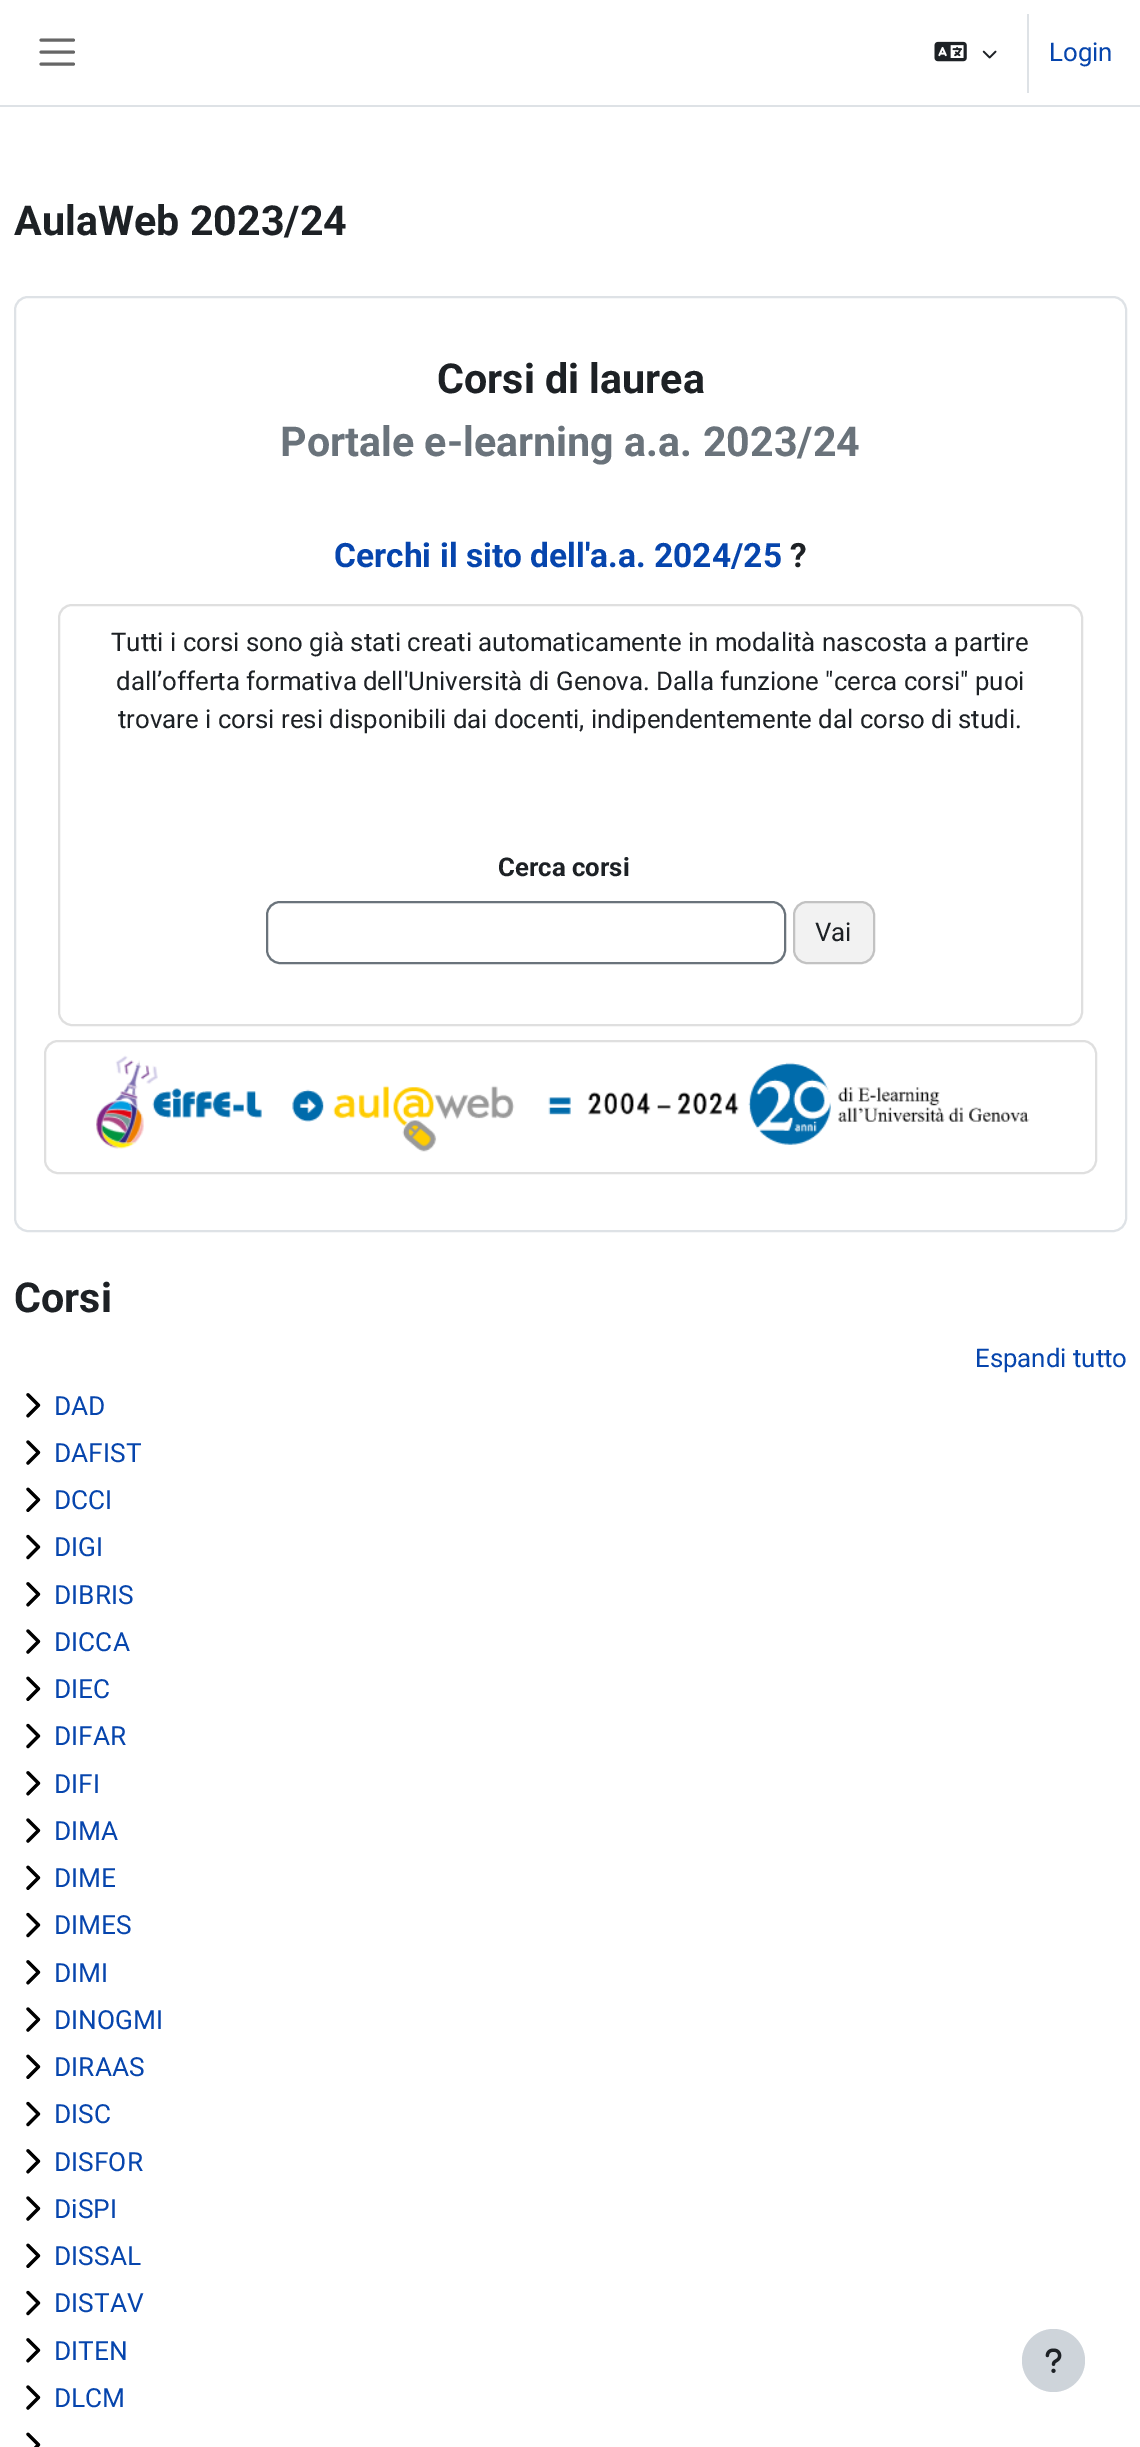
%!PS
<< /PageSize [1140 2447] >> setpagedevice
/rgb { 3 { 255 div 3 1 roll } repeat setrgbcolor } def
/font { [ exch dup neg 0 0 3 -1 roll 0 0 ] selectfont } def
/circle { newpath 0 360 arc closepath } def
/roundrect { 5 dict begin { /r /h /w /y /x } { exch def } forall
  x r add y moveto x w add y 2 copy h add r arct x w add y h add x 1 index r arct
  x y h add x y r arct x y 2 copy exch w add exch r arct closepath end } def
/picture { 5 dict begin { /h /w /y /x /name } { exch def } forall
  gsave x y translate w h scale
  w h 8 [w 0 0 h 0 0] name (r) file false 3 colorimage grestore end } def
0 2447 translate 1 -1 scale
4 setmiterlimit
255 255 255 rgb
0 0 1140 2447 rectfill
222 226 230 rgb
0 105 1140 2 rectfill
102 102 102 rgb
3 setlinewidth
1 setlinecap
41 40 moveto 73.5 40 lineto 41 52 moveto 73.5 52 lineto 41 64 moveto 73.5 64 lineto stroke
(img/1.rgb) 934 41 33 21 picture
(img/2.rgb) 982 50 15 9 picture
222 226 230 rgb
1027 14 2 79 rectfill
2 setlinewidth
0 setlinecap
15 297 1111 934 13 roundrect stroke
223 223 223 rgb
59 605 1023 420 13 roundrect stroke
106 115 123 rgb
267 902 518 61 13 roundrect stroke
242 242 242 rgb
794 902 80 61 13 roundrect gsave fill grestore
194 194 194 rgb
stroke
223 223 223 rgb
45 1041 1051 132 13 roundrect stroke
(img/3.rgb) 96 1055 934 97 picture
(img/4.rgb) 26 1393 15 25 picture
(img/5.rgb) 26 1440 15 25 picture
(img/6.rgb) 26 1487 15 25 picture
(img/7.rgb) 26 1534 15 26 picture
(img/4.rgb) 26 1582 15 25 picture
(img/5.rgb) 26 1629 15 25 picture
(img/6.rgb) 26 1676 15 25 picture
(img/7.rgb) 26 1723 15 26 picture
(img/8.rgb) 26 1771 15 25 picture
(img/5.rgb) 26 1818 15 25 picture
(img/6.rgb) 26 1865 15 25 picture
(img/7.rgb) 26 1912 15 26 picture
(img/4.rgb) 26 1960 15 25 picture
(img/5.rgb) 26 2007 15 25 picture
(img/6.rgb) 26 2054 15 25 picture
(img/7.rgb) 26 2101 15 26 picture
(img/4.rgb) 26 2149 15 25 picture
(img/5.rgb) 26 2196 15 25 picture
(img/6.rgb) 26 2243 15 25 picture
(img/7.rgb) 26 2290 15 26 picture
(img/4.rgb) 26 2338 15 25 picture
(img/5.rgb) 26 2385 15 25 picture
(img/9.rgb) 26 2432 15 15 picture
206 212 218 rgb
1053.5 2360.5 31.5 circle fill
(img/10.rgb) 1045 2348 17 25 picture
/Roboto-Regular 25.8 font
6 69 173 rgb
1049 61 moveto (Login) show
/Roboto-Bold 41.25 font
29 33 37 rgb
14 235 moveto (AulaWeb 2023/24) show
437 393 moveto (Corsi di laurea) show
106 115 123 rgb
280 456 moveto (Portale e-learning a.a. 2023/24) show
/Roboto-Bold 33.5 font
6 69 173 rgb
334 567 moveto (Cerchi il sito dell'a.a. 2024/25) show
29 33 37 rgb
790 567 moveto (?) show
/Roboto-Regular 25.8 font
[
  [(Tutti i corsi sono già stati creati automaticamente in modalità nascosta a partire) 111 651]
  [(dall’offerta formativa dell'Università di Genova. Dalla funzione "cerca corsi" puoi) 116 690]
  [(trovare i corsi resi disponibili dai docenti, indipendentemente dal corso di studi.) 118 728]
] { aload pop moveto show } forall
/Roboto-Bold 25.8 font
498 876 moveto (Cerca corsi) show
/Roboto-Regular 25.8 font
815 941 moveto (Vai) show
/Roboto-Bold 41.25 font
14 1312 moveto (Corsi) show
/Roboto-Regular 25.8 font
6 69 173 rgb
975 1367 moveto (Espandi tutto) show
/Roboto-Regular 26.25 font
[
  [(DAD) 54 1415]
  [(DAFIST) 54 1462]
  [(DCCI) 54 1509]
  [(DIGI) 54 1556]
  [(DIBRIS) 54 1604]
  [(DICCA) 54 1651]
  [(DIEC) 54 1698]
  [(DIFAR) 54 1745]
  [(DIFI) 54 1793]
  [(DIMA) 54 1840]
  [(DIME) 54 1887]
  [(DIMES) 54 1934]
  [(DIMI) 54 1982]
  [(DINOGMI) 54 2029]
  [(DIRAAS) 54 2076]
  [(DISC) 54 2123]
  [(DISFOR) 54 2171]
  [(DiSPI) 54 2218]
  [(DISSAL) 54 2265]
  [(DISTAV) 54 2312]
  [(DITEN) 54 2360]
  [(DLCM) 54 2407]
] { aload pop moveto show } forall
showpage
